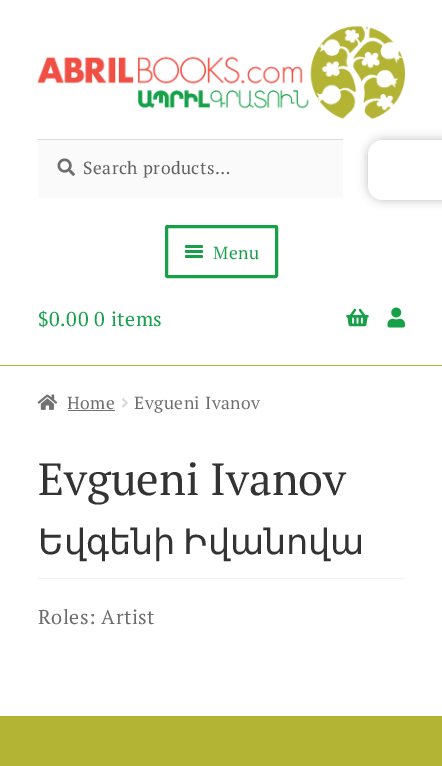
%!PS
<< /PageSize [442 766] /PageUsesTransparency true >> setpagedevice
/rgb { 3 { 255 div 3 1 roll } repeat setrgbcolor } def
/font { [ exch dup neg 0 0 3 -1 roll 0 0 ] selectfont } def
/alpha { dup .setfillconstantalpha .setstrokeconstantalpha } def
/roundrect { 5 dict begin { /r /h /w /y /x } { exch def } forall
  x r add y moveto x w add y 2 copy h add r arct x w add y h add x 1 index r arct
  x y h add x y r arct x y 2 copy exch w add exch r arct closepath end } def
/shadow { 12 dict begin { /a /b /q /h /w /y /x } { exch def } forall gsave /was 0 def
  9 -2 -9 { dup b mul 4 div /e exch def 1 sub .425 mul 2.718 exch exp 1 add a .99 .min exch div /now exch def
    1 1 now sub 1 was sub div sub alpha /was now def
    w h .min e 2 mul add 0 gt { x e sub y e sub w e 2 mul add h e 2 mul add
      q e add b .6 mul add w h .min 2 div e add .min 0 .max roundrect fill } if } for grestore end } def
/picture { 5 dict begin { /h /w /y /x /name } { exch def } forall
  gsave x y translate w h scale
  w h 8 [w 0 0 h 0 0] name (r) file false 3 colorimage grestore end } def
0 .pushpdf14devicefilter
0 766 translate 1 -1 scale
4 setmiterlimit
255 255 255 rgb
0 0 442 766 rectfill
179 179 52 rgb
0 365 442 1 rectfill
(img/1.rgb) 37 26 368 93 picture
250 250 250 rgb
38 140 305 58 rectfill
(img/2.rgb) 57 158 18 18 picture
219 219 219 rgb
38 139 305 1 rectfill
22 161 73 rgb
3 setlinewidth
166.5 226.5 110 50 1 roundrect stroke
185 245 18 3 1.5 roundrect fill
185 250 18 3 1.5 roundrect fill
185 255 18 3 1.5 roundrect fill
(img/3.rgb) 346 308 23 19 picture
(img/4.rgb) 387 307 18 21 picture
0 0 0 rgb
368 140 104 60 15 5 0.25 shadow
255 255 255 rgb
383 140 moveto 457 140 lineto 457 200 lineto 383 200 lineto 374.5 200 368 193.5 368 185 curveto 368 155 lineto 368 146.5 374.5 140 383 140 curveto closepath fill
(img/5.rgb) 37 394 21 16 picture
114 114 114 rgb
68 410 47 1 rectfill
(img/6.rgb) 122 398 6 10 picture
242 242 242 rgb
38 578 367 1 rectfill
179 179 52 rgb
0 716 442 50 rectfill
/PTSerif-Regular 17.5 font
97 97 97 rgb
83 174 moveto 0.5 0 (Search products…) ashow
22 161 73 rgb
213 259 moveto 0.5 0 (Menu) ashow
/PTSerif-Regular 20 font
38 326 moveto 0.5 0 ($0.00 0 items) ashow
/PTSerif-Regular 17.5 font
109 109 109 rgb
67 409 moveto 0.5 0 (Home) ashow
134 409 moveto 0.5 0 (Evgueni Ivanov) ashow
/PTSerif-Regular 45 font
51 51 51 rgb
38 495 moveto (Evgueni Ivanov) show
/DejaVuSans-Regular 35 font
38 554 moveto -3 0 32 (Եվգենի Իվանովա) widthshow
/PTSerif-Regular 20 font
109 109 109 rgb
38 624 moveto 0.5 0 (Roles: Artist) ashow
.poppdf14devicefilter showpage
